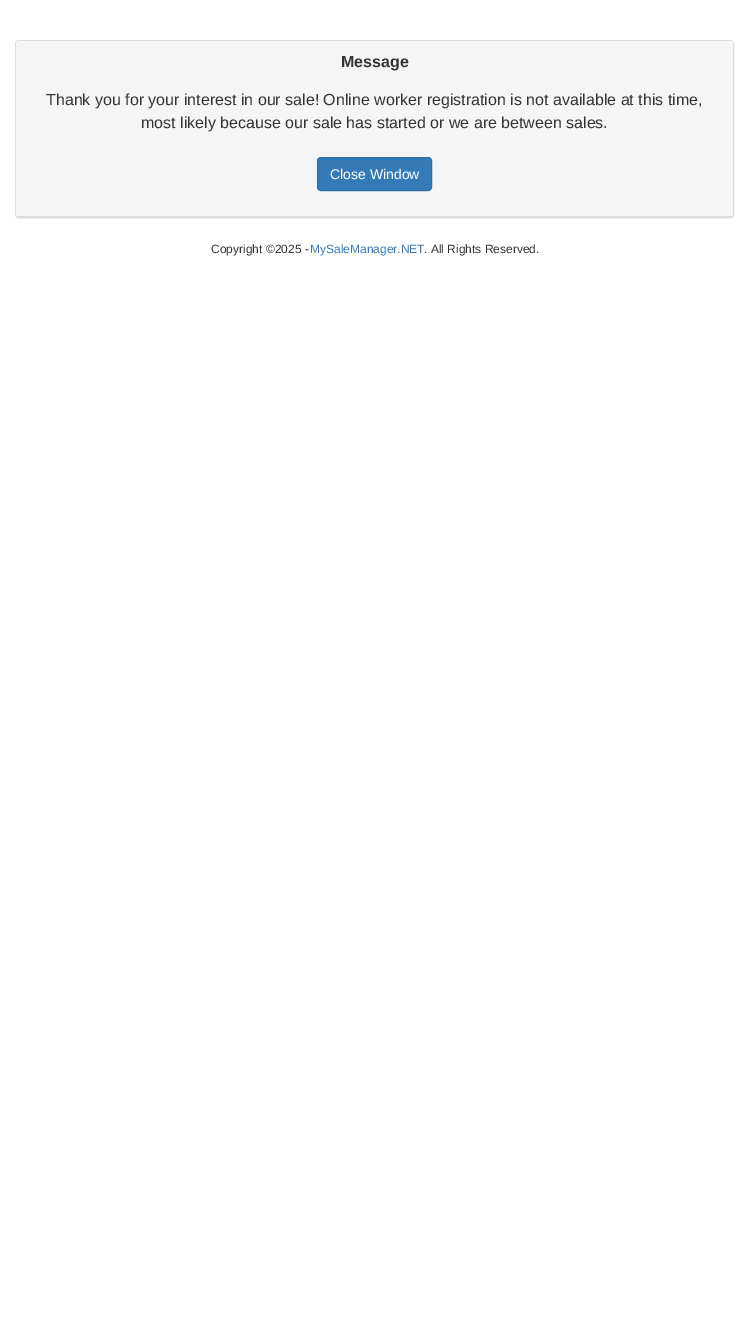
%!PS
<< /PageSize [749 1333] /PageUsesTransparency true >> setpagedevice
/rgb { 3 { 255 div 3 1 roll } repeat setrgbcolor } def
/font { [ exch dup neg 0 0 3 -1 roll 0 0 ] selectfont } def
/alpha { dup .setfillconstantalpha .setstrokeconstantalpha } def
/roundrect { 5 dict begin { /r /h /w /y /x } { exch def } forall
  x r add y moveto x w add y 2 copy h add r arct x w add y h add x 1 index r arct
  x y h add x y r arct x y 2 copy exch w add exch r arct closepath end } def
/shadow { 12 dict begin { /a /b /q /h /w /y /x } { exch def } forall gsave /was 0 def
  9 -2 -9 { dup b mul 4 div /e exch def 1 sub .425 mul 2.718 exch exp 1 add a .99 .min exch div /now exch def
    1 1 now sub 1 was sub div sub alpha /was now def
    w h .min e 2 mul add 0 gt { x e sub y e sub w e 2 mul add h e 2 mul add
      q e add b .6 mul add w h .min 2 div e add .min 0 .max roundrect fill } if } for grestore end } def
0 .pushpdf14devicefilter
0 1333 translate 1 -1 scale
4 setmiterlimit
255 255 255 rgb
0 0 749 1333 rectfill
0 0 0 rgb
15 41 719 178 4 0.5 0.05 shadow
221 221 221 rgb
15.5 40.5 718 177 3.5 roundrect stroke
245 245 245 rgb
19 41 moveto 730 41 lineto 731.5 41 733 42.5 733 44 curveto 733 217 lineto 16 217 lineto 16 44 lineto 16 42.5 17.5 41 19 41 curveto closepath fill
221 221 221 rgb
16 216 717 1 rectfill
51 122 183 rgb
317.5 157.5 114 33 3.5 roundrect gsave fill grestore
46 109 164 rgb
stroke
/LiberationSans-Bold 16 font
51 51 51 rgb
341 67 moveto (Message) show
/LiberationSans-Regular 16 font
46 105 moveto (Thank you for your interest in our sale! Online worker registration is not available at this time,) show
141 128 moveto (most likely because our sale has started or we are between sales.) show
/LiberationSans-Regular 14 font
255 255 255 rgb
330 179 moveto (Close Window) show
/LiberationSans-Regular 12 font
51 51 51 rgb
211 253 moveto (Copyright ©2025 -) show
51 122 183 rgb
310 253 moveto (MySaleManager.NET) show
51 51 51 rgb
424 253 moveto (. All Rights Reserved.) show
.poppdf14devicefilter showpage
